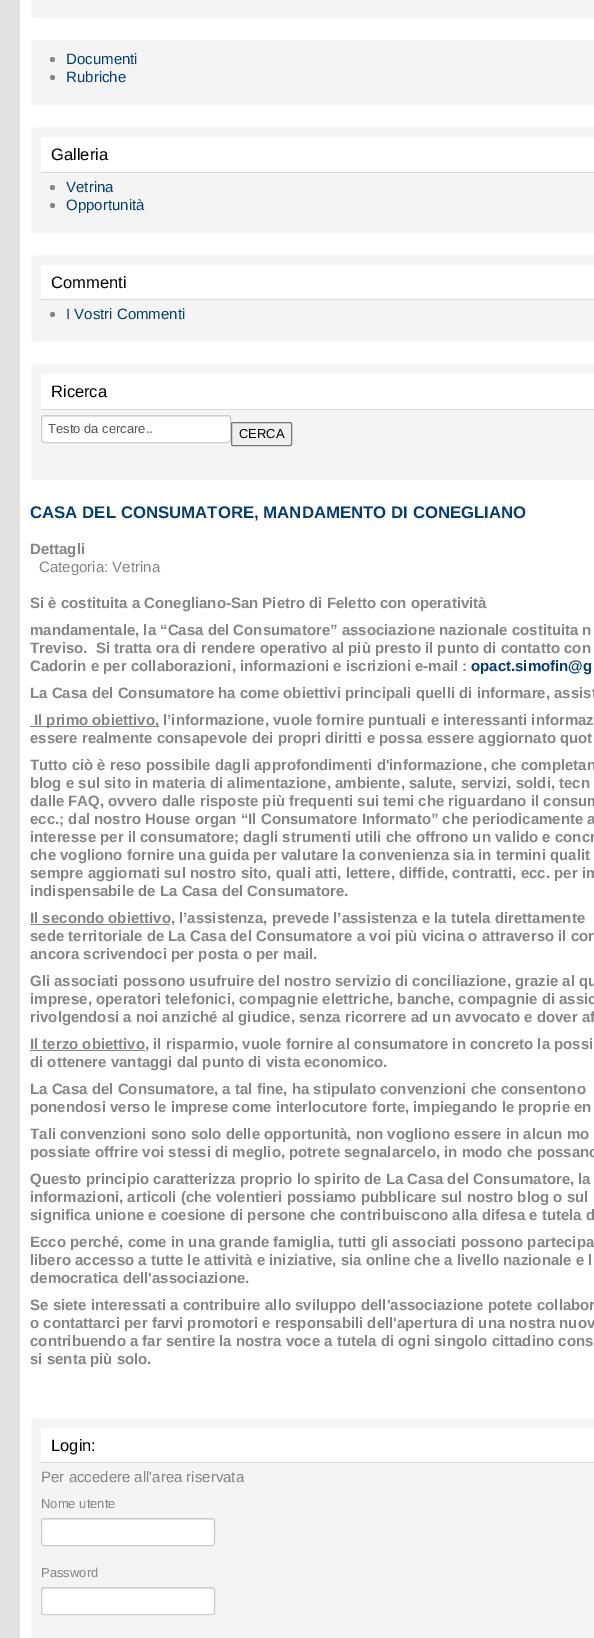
%!PS
<< /PageSize [594 1638] >> setpagedevice
/rgb { 3 { 255 div 3 1 roll } repeat setrgbcolor } def
/font { [ exch dup neg 0 0 3 -1 roll 0 0 ] selectfont } def
/circle { newpath 0 360 arc closepath } def
/roundrect { 5 dict begin { /r /h /w /y /x } { exch def } forall
  x r add y moveto x w add y 2 copy h add r arct x w add y h add x 1 index r arct
  x y h add x y r arct x y 2 copy exch w add exch r arct closepath end } def
/picture { 5 dict begin { /h /w /y /x /name } { exch def } forall
  gsave x y translate w h scale
  w h 8 [w 0 0 h 0 0] name (r) file false 3 colorimage grestore end } def
0 1638 translate 1 -1 scale
4 setmiterlimit
225 225 225 rgb
0 0 594 1638 rectfill
255 255 255 rgb
20 0 574 1638 rectfill
(img/1.rgb) 30 0 564 19 picture
30.5 -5.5 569 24 4.5 roundrect stroke
(img/2.rgb) 30 39 564 67 picture
30.5 39.5 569 66 4.5 roundrect stroke
134 132 132 rgb
52.5 59.5 2.5 circle fill
52.5 77.5 2.5 circle fill
(img/3.rgb) 30 126 564 108 picture
255 255 255 rgb
30.5 126.5 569 107 4.5 roundrect stroke
41 137 553 35 rectfill
215 215 215 rgb
41 172 553 1 rectfill
134 132 132 rgb
52.5 187.5 2.5 circle fill
52.5 205.5 2.5 circle fill
(img/4.rgb) 30 254 564 89 picture
255 255 255 rgb
30.5 254.5 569 88 4.5 roundrect stroke
41 265 553 34 rectfill
215 215 215 rgb
41 299 553 1 rectfill
134 132 132 rgb
52.5 314.5 2.5 circle fill
(img/5.rgb) 30 363 564 118 picture
255 255 255 rgb
30.5 363.5 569 117 4.5 roundrect stroke
41 374 553 35 rectfill
215 215 215 rgb
41 409 553 1 rectfill
255 255 255 rgb
41 415 190 28 3 roundrect fill
236 236 236 rgb
44 417 moveto 228 417 lineto 229 417 230 418 230 419 curveto 230 418 lineto 230 417 229 416 228 416 curveto 44 416 lineto 43 416 42 417 42 418 curveto 42 419 lineto 42 418 43 417 44 417 curveto closepath fill
204 204 204 rgb
41.5 415.5 189 27 2.5 roundrect stroke
239 239 239 rgb
231.5 422.5 60 23 1.5 roundrect gsave fill grestore
118 118 118 rgb
stroke
[
  [30 726 129 1 134 132 132]
  [30 924 140 1 134 132 132]
  [30 1050 115 1 134 132 132]
] { aload pop rgb rectfill } forall
(img/6.rgb) 30 1417 564 221 picture
255 255 255 rgb
30.5 1417.5 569 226 4.5 roundrect stroke
41 1428 553 34 rectfill
215 215 215 rgb
41 1462 553 1 rectfill
255 255 255 rgb
41 1518 174 28 3 roundrect fill
236 236 236 rgb
44 1520 moveto 212 1520 lineto 213 1520 214 1521 214 1522 curveto 214 1521 214 1519 212 1519 curveto 43 1519 lineto 42 1520 42 1521 42 1522 curveto 42 1521 43 1520 44 1520 curveto closepath fill
204 204 204 rgb
41.5 1518.5 173 27 2.5 roundrect stroke
255 255 255 rgb
41 1587 174 28 3 roundrect fill
236 236 236 rgb
44 1589 moveto 212 1589 lineto 213 1589 214 1590 214 1591 curveto 214 1590 214 1588 212 1588 curveto 43 1588 lineto 42 1589 42 1590 42 1591 curveto 42 1590 43 1589 44 1589 curveto closepath fill
204 204 204 rgb
41.5 1587.5 173 27 2.5 roundrect stroke
/LiberationSans-Regular 15 font
4 61 116 rgb
66 64 moveto (Documenti) show
66 82 moveto (Rubriche) show
/LiberationSans-Regular 16.5 font
0 0 1 rgb
51 160 moveto (Galleria) show
/LiberationSans-Regular 15 font
4 61 116 rgb
66 192 moveto (Vetrina) show
66 210 moveto (Opportunità) show
/LiberationSans-Regular 16.5 font
0 0 1 rgb
51 288 moveto (Commenti) show
/LiberationSans-Regular 15 font
4 61 116 rgb
66 319 moveto (I Vostri Commenti) show
/LiberationSans-Regular 16.5 font
0 0 1 rgb
51 397 moveto (Ricerca) show
/LiberationSans-Regular 13 font
85 85 85 rgb
48 433 moveto (Testo da cercare..) show
0 0 1 rgb
239 438 moveto (CERCA) show
/LiberationSans-Bold 16.8 font
4 61 116 rgb
30 518 moveto (CASA DEL CONSUMATORE, MANDAMENTO DI CONEGLIANO) show
/LiberationSans-Bold 15 font
134 132 132 rgb
30 554 moveto (Dettagli) show
/LiberationSans-Regular 15 font
39 572 moveto (Categoria: Vetrina) show
/LiberationSans-Bold 15 font
[
  [(Si è costituita a Conegliano-San Pietro di Feletto con operatività) 30 608]
  [(mandamentale, la “Casa del Consumatore” associazione nazionale costituita n) 30 635]
  [(Treviso.  Si tratta ora di rendere operativo al più presto il punto di contatto con) 30 653]
  [(Cadorin e per collaborazioni, informazioni e iscrizioni e-mail :) 30 671]
] { aload pop moveto show } forall
4 61 116 rgb
471 671 moveto (opact.simofin@g) show
134 132 132 rgb
[
  [(La Casa del Consumatore ha come obiettivi principali quelli di informare, assist) 30 698]
  [(Il primo obiettivo, l’informazione, vuole fornire puntuali e interessanti informaz) 34 725]
  [(essere realmente consapevole dei propri diritti e possa essere aggiornato quot) 30 743]
  [(Tutto ciò è reso possibile dagli approfondimenti d'informazione, che completan) 30 770]
  [(blog e sul sito in materia di alimentazione, ambiente, salute, servizi, soldi, tecn) 30 788]
  [(dalle FAQ, ovvero dalle risposte più frequenti sui temi che riguardano il consum) 30 806]
  [(ecc.; dal nostro House organ “Il Consumatore Informato” che periodicamente a) 30 824]
  [(interesse per il consumatore; dagli strumenti utili che offrono un valido e concr) 30 842]
  [(che vogliono fornire una guida per valutare la convenienza sia in termini qualit) 30 860]
  [(sempre aggiornati sul nostro sito, quali atti, lettere, diffide, contratti, ecc. per im) 30 878]
  [(indispensabile de La Casa del Consumatore.) 30 896]
  [(Il secondo obiettivo, l’assistenza, prevede l’assistenza e la tutela direttamente) 30 923]
  [(sede territoriale de La Casa del Consumatore a voi più vicina o attraverso il con) 30 941]
  [(ancora scrivendoci per posta o per mail.) 30 959]
  [(Gli associati possono usufruire del nostro servizio di conciliazione, grazie al qu) 30 986]
  [(imprese, operatori telefonici, compagnie elettriche, banche, compagnie di assic) 30 1004]
  [(rivolgendosi a noi anziché al giudice, senza ricorrere ad un avvocato e dover af) 30 1022]
  [(Il terzo obiettivo, il risparmio, vuole fornire al consumatore in concreto la possi) 30 1049]
  [(di ottenere vantaggi dal punto di vista economico.) 30 1067]
  [(La Casa del Consumatore, a tal fine, ha stipulato convenzioni che consentono) 30 1094]
  [(ponendosi verso le imprese come interlocutore forte, impiegando le proprie en) 30 1112]
  [(Tali convenzioni sono solo delle opportunità, non vogliono essere in alcun mo) 30 1139]
  [(possiate offrire voi stessi di meglio, potrete segnalarcelo, in modo che possano) 30 1157]
  [(Questo principio caratterizza proprio lo spirito de La Casa del Consumatore, la) 30 1184]
  [(informazioni, articoli \(che volentieri possiamo pubblicare sul nostro blog o sul) 30 1202]
  [(significa unione e coesione di persone che contribuiscono alla difesa e tutela d) 30 1220]
  [(Ecco perché, come in una grande famiglia, tutti gli associati possono partecipa) 30 1247]
  [(libero accesso a tutte le attività e iniziative, sia online che a livello nazionale e l) 30 1265]
  [(democratica dell'associazione.) 30 1283]
  [(Se siete interessati a contribuire allo sviluppo dell'associazione potete collabor) 30 1310]
  [(o contattarci per farvi promotori e responsabili dell'apertura di una nostra nuov) 30 1328]
  [(contribuendo a far sentire la nostra voce a tutela di ogni singolo cittadino cons) 30 1346]
  [(si senta più solo.) 30 1364]
] { aload pop moveto show } forall
/LiberationSans-Regular 16.5 font
0 0 1 rgb
51 1451 moveto (Login:) show
/LiberationSans-Regular 15 font
134 132 132 rgb
41 1482 moveto (Per accedere all'area riservata) show
/LiberationSans-Regular 13 font
41 1508 moveto (Nome utente) show
41 1577 moveto (Password) show
showpage
